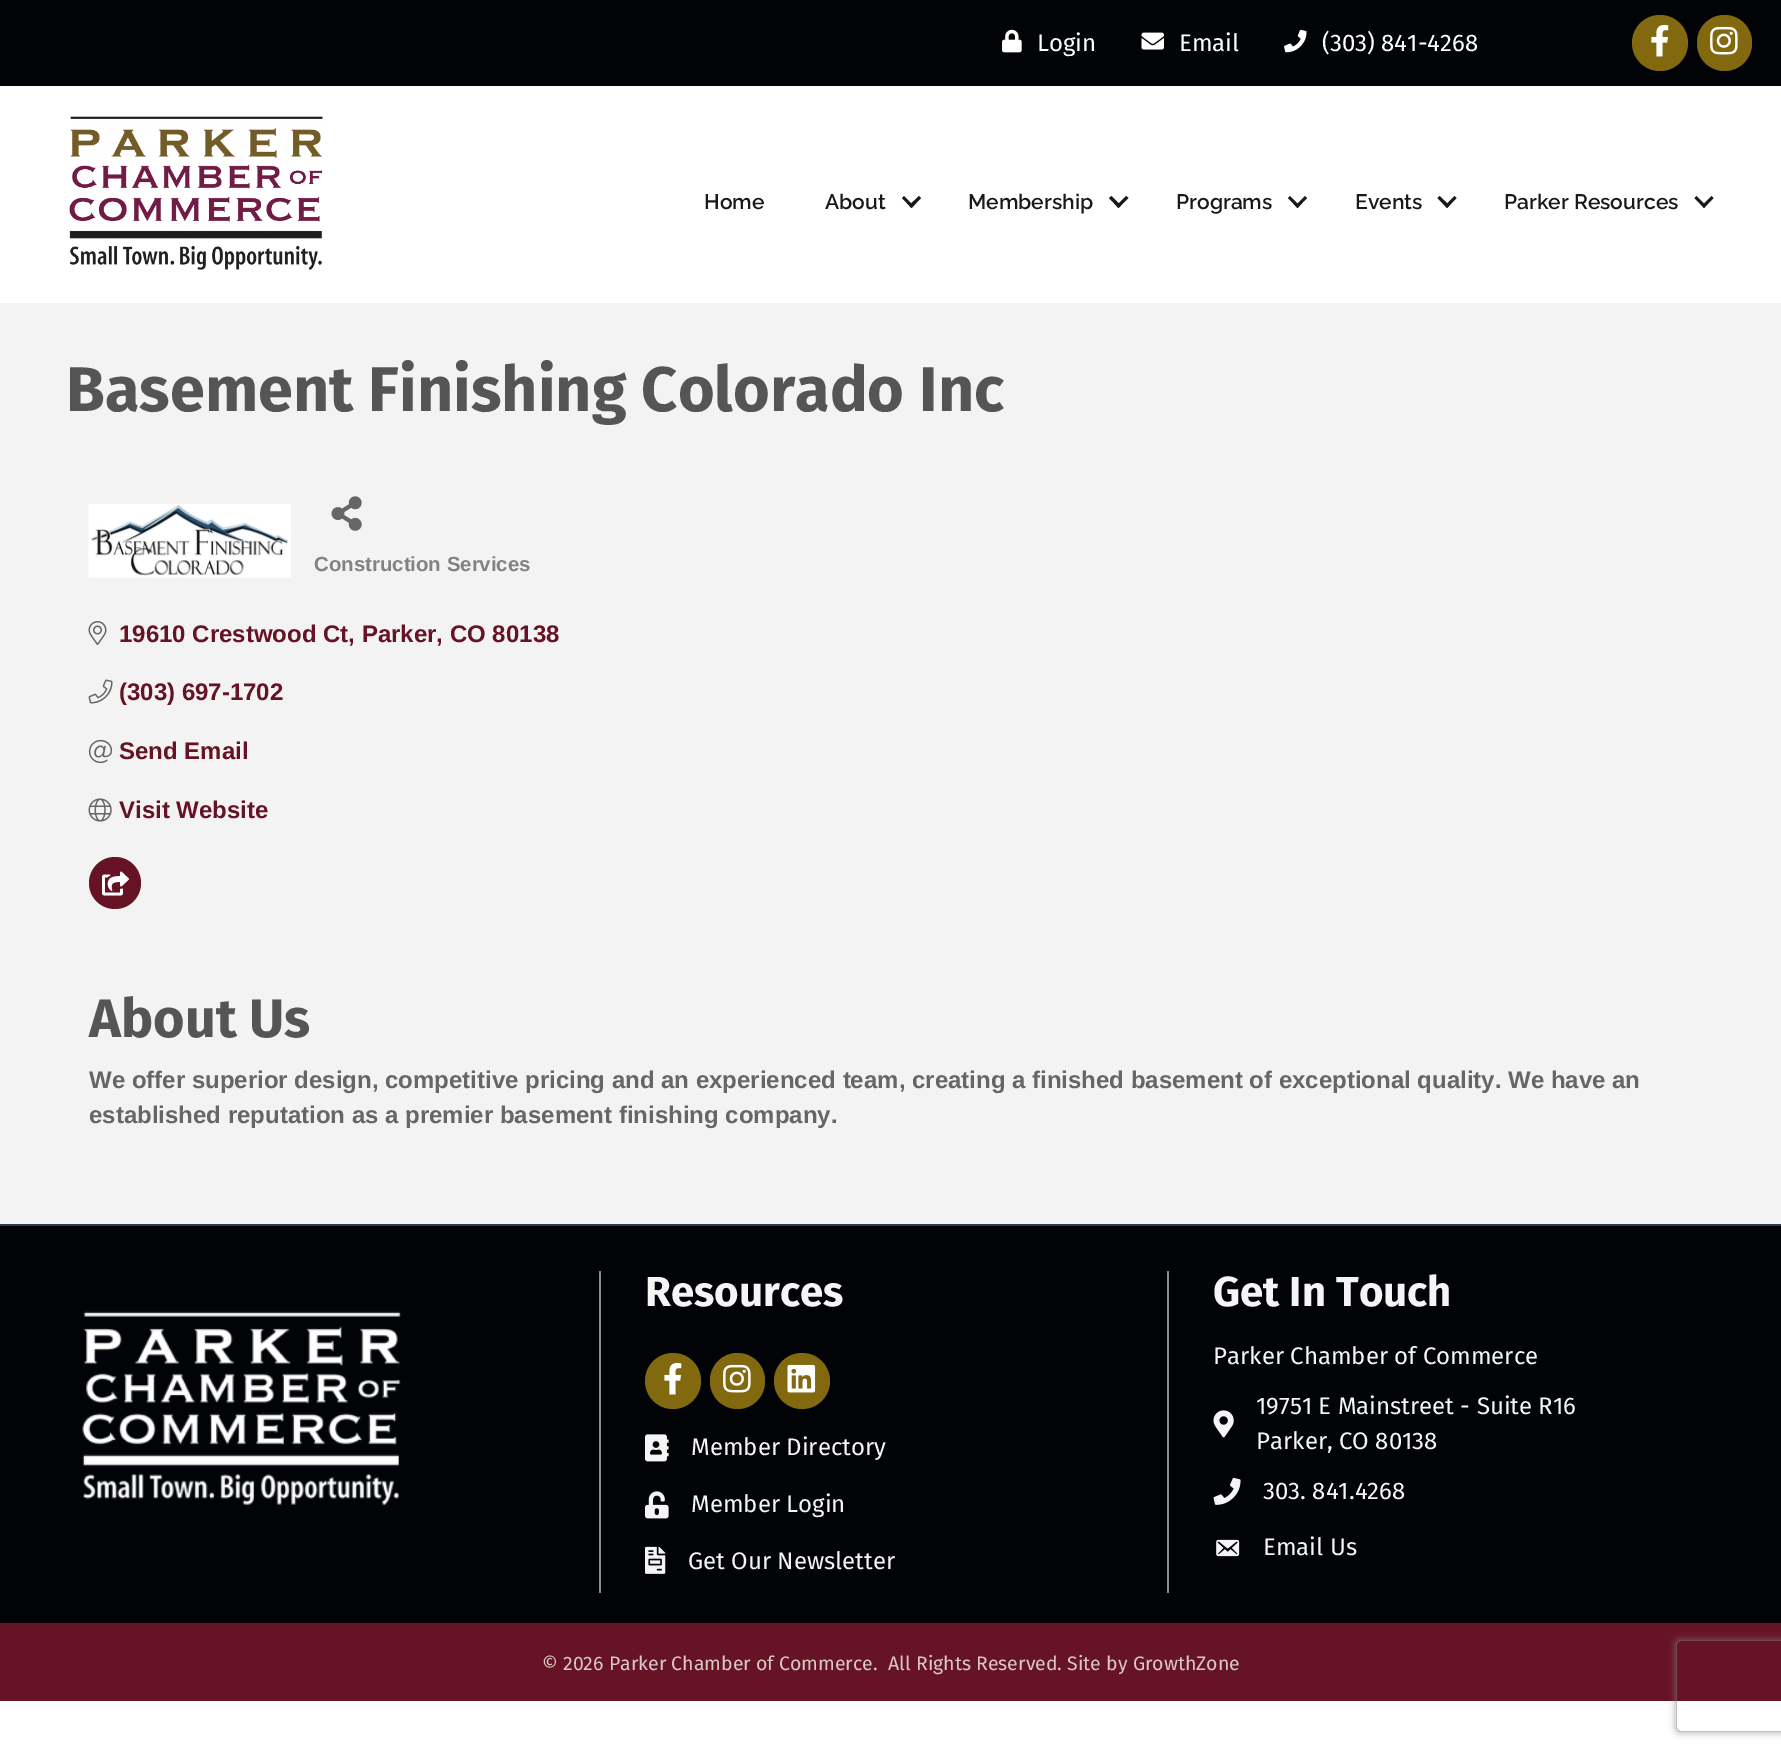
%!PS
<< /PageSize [1781 1752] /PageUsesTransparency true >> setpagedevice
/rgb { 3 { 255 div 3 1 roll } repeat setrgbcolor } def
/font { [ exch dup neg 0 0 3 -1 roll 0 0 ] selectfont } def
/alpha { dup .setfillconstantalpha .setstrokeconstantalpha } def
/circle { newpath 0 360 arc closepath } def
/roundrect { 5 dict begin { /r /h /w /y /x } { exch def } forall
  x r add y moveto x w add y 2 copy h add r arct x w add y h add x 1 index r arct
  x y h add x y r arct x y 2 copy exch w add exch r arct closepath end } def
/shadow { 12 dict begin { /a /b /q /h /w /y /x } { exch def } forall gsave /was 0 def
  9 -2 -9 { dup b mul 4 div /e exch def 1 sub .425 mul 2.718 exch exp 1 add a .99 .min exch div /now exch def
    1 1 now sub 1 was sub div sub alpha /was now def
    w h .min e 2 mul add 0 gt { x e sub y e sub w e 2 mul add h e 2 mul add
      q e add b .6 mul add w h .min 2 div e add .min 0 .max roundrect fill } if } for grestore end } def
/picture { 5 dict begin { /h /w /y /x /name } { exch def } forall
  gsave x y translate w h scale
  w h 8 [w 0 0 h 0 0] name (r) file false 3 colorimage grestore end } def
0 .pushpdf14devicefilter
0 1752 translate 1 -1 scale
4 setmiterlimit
255 255 255 rgb
0 0 1781 1752 rectfill
1 3 7 rgb
0 0 1781 86 rectfill
(img/1.rgb) 1002 29 20 24 picture
(img/2.rgb) 1141 32 23 18 picture
(img/3.rgb) 1284 29 23 24 picture
130 105 15 rgb
1660 43 28 circle fill
(img/4.rgb) 1651 24 18 33 picture
1697 15 55 56 27.5 roundrect fill
(img/5.rgb) 1710 26 28 29 picture
(img/6.rgb) 69 116 254 154 picture
25 25 25 rgb
919 196 moveto 921 198 lineto 911.5 208 lineto 909 205.5 lineto closepath fill
904 196 moveto 913.5 205.5 lineto 911.5 208 lineto 902 198 lineto closepath fill
1126 196 moveto 1128.5 198 lineto 1118.5 208 lineto 1116.5 205.5 lineto closepath fill
1111.5 196 moveto 1121 205.5 lineto 1118.5 208 lineto 1109 198 lineto closepath fill
1305 196 moveto 1307 198 lineto 1297.5 208 lineto 1295.5 205.5 lineto closepath fill
1290 196 moveto 1299.5 205.5 lineto 1297.5 208 lineto 1288 198 lineto closepath fill
1454.5 196 moveto 1456.5 198 lineto 1447 208 lineto 1445 205.5 lineto closepath fill
1439.5 196 moveto 1449.5 205.5 lineto 1447 208 lineto 1437.5 198 lineto closepath fill
1711.5 196 moveto 1713.5 198 lineto 1704 208 lineto 1702 205.5 lineto closepath fill
1696.5 196 moveto 1706 205.5 lineto 1704 208 lineto 1694.5 198 lineto closepath fill
243 243 243 rgb
0 303 1781 921 rectfill
(img/7.rgb) 88 504 203 74 picture
(img/8.rgb) 331 496 31 35 picture
(img/9.rgb) 88 621 19 24 picture
(img/10.rgb) 88 679 25 25 picture
(img/11.rgb) 88 739 25 25 picture
(img/12.rgb) 88 798 24 24 picture
102 19 37 rgb
115 883 26 circle fill
(img/13.rgb) 102 871 27 25 picture
1 3 7 rgb
0 1226 1781 397 rectfill
44 58 86 rgb
0 1224 1781 2 rectfill
(img/14.rgb) 82 1311 319 195 picture
138 139 141 rgb
599 1271 2 322 rectfill
130 105 15 rgb
673 1381 28 circle fill
(img/4.rgb) 664 1362 18 33 picture
710 1353 55 56 27.5 roundrect fill
(img/5.rgb) 723 1364 28 29 picture
802 1381 28 circle fill
(img/15.rgb) 787 1364 29 29 picture
(img/16.rgb) 645 1434 24 28 picture
(img/17.rgb) 645 1491 24 28 picture
(img/18.rgb) 645 1546 21 28 picture
138 139 141 rgb
1167 1271 2 322 rectfill
(img/19.rgb) 1213 1410 21 28 picture
(img/20.rgb) 1213 1477 28 28 picture
(img/21.rgb) 1216 1539 24 18 picture
102 19 37 rgb
0 1623 1781 78 rectfill
gsave
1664 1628 moveto 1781 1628 lineto 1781 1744 lineto 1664 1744 lineto closepath 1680 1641 moveto 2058 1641 lineto 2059.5 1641 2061 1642.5 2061 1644 curveto 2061 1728 lineto 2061 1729.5 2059.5 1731 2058 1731 curveto 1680 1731 lineto 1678.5 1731 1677 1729.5 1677 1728 curveto 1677 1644 lineto 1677 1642.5 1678.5 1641 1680 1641 curveto closepath eoclip newpath
128 128 128 rgb
1677 1641 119 90 3 4 1 shadow
grestore
/FiraSans-Regular 24 font
255 255 255 rgb
[
  [(Login) 1037 51]
  [(Email) 1179 51]
  [(\(303\) 841-4268) 1322 51]
] { aload pop moveto show } forall
/Raleway-SemiBold 21 font
25 25 25 rgb
[
  [(Home) 704 209]
  [(About) 825 209]
  [(Membership) 968 209]
  [(Programs) 1176 209]
  [(Events) 1355 209]
  [(Parker Resources) 1504 209]
] { aload pop moveto show } forall
/FiraSans-Bold 63 font
85 85 85 rgb
66 411 moveto (Basement Finishing Colorado Inc) show
/LiberationSans-Bold 20.4 font
130 130 130 rgb
314 571 moveto (Construction Services) show
/LiberationSans-Bold 24 font
102 19 37 rgb
[
  [(19610 Crestwood Ct, Parker, CO 80138) 119 642]
  [(\(303\) 697-1702) 119 700]
  [(Send Email) 119 759]
  [(Visit Website) 119 818]
] { aload pop moveto show } forall
/FiraSans-Bold 54 font
85 85 85 rgb
89 1037 moveto (About Us) show
/LiberationSans-Bold 24 font
102 102 102 rgb
89 1088 moveto (We offer superior design, competitive pricing and an experienced team, creating a finished basement of exceptional quality. We have an) show
89 1123 moveto (established reputation as a premier basement finishing company.) show
/FiraSans-Bold 42 font
245 245 245 rgb
645 1306 moveto (Resources) show
/FiraSans-Regular 24 font
[
  [(Member Directory) 691 1455]
  [(Member Login) 691 1512]
  [(Get Our Newsletter) 688 1569]
] { aload pop moveto show } forall
/FiraSans-Bold 42 font
1213 1306 moveto (Get In Touch) show
/FiraSans-Regular 24 font
[
  [(Parker Chamber of Commerce) 1213 1364]
  [(19751 E Mainstreet - Suite R16) 1256 1414]
  [(Parker, CO 80138) 1256 1449]
  [(303. 841.4268) 1263 1499]
  [(Email Us) 1263 1555]
] { aload pop moveto show } forall
/FiraSans-Regular 19.5 font
218 198 203 rgb
542 1670 moveto (© 2026 Parker Chamber of Commerce.) show
888 1670 moveto (All Rights Reserved. Site by GrowthZone) show
.poppdf14devicefilter showpage
